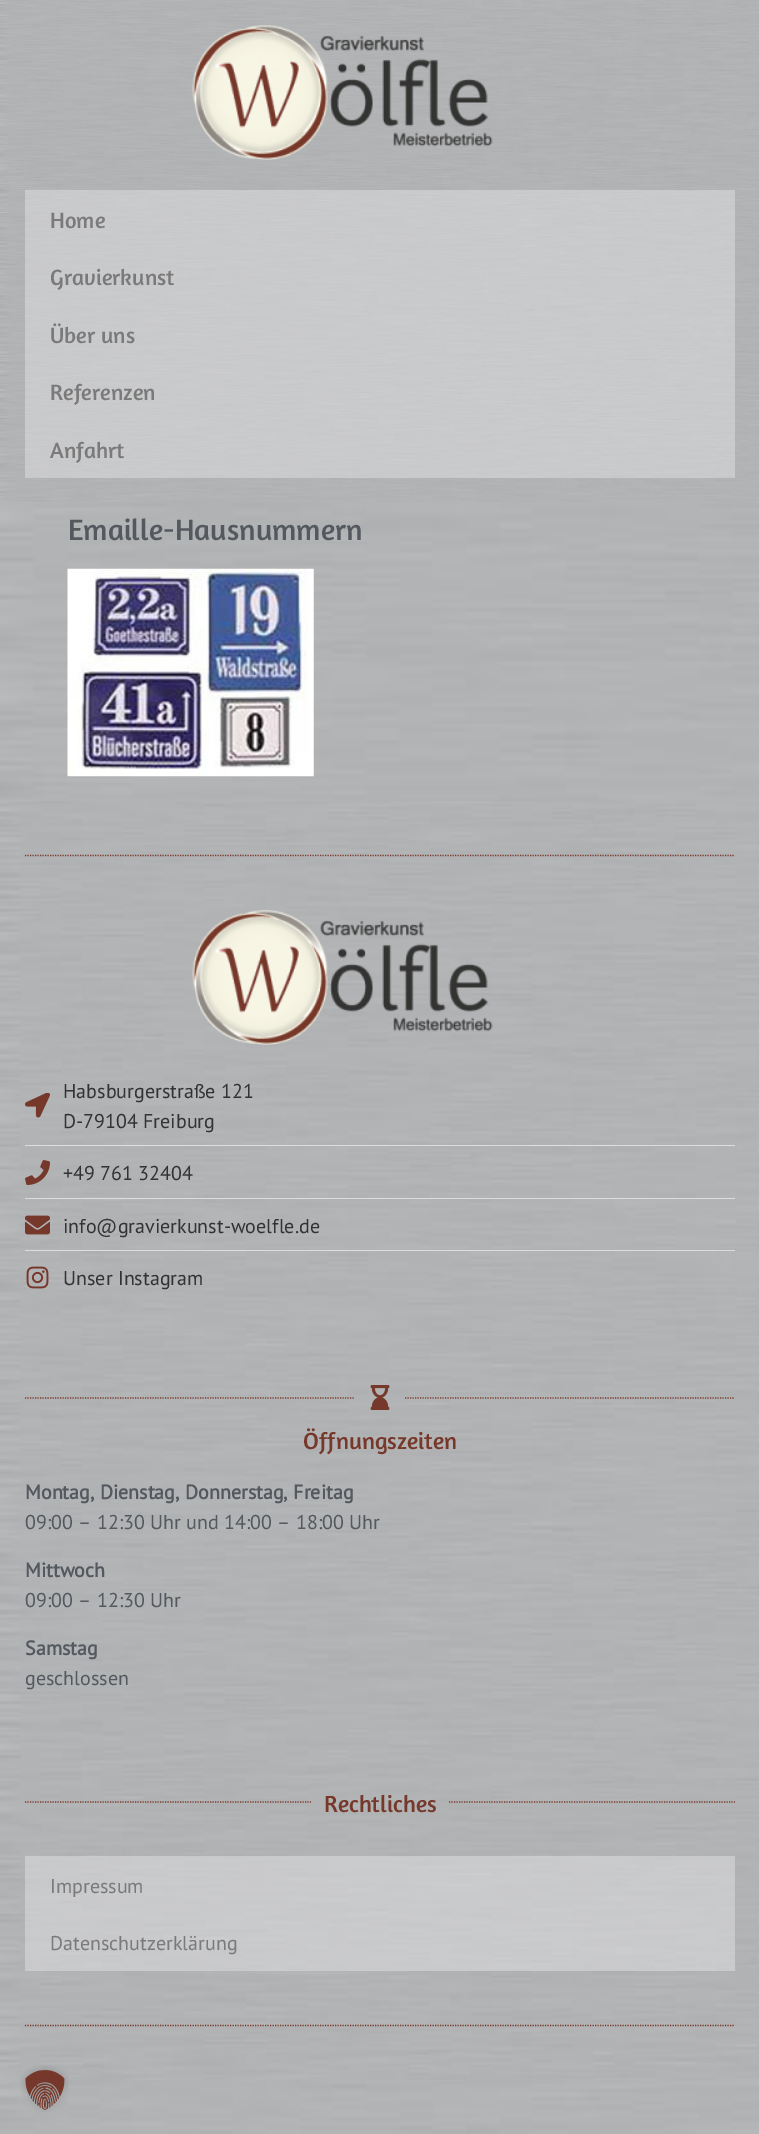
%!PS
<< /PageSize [759 2134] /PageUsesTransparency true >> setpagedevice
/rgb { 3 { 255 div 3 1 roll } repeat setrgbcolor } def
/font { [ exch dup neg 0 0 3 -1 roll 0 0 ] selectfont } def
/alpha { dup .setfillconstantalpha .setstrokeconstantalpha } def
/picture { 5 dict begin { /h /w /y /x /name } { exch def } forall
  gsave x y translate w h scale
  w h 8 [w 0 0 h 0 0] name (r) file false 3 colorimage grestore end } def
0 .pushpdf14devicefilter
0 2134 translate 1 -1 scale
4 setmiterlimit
255 255 255 rgb
0 0 759 2134 rectfill
(img/1.rgb) 0 502 759 1632 picture
(img/2.rgb) 0 0 759 502 picture
(img/3.rgb) 192 25 301 135 picture
0.3 alpha
25 190 710 288 rectfill
1 alpha
(img/4.rgb) 67 568 247 209 picture
(img/5.rgb) 0 801 759 1279 picture
118 56 42 rgb
1.2 setlinewidth
[1.25 1.25] 0 setdash
25 855.5 moveto 735 855.5 lineto stroke
(img/6.rgb) 192 910 301 135 picture
(img/7.rgb) 25 1093 25 25 picture
221 221 221 rgb
25 1145 710 1 rectfill
(img/8.rgb) 25 1160 25 25 picture
25 1198 710 1 rectfill
(img/9.rgb) 25 1215 25 20 picture
25 1250 710 1 rectfill
(img/10.rgb) 26 1266 23 23 picture
118 56 42 rgb
25 1398 moveto 355 1398 lineto stroke
(img/11.rgb) 370 1385 20 25 picture
405 1398 moveto 735 1398 lineto stroke
25 1802 moveto 311 1802 lineto stroke
449 1802 moveto 735 1802 lineto stroke
0.3 alpha
255 255 255 rgb
25 1856 710 115 rectfill
1 alpha
118 56 42 rgb
25 2025.5 moveto 735 2025.5 lineto stroke
(img/12.rgb) 20 2065 49 47 picture
/Amaranth-Regular 22.5 font
122 122 122 rgb
[
  [(Home) 50 228]
  [(Gravierkunst) 50 285]
  [(Über uns) 50 343]
  [(Referenzen) 50 400]
  [(Anfahrt) 50 458]
] { aload pop moveto show } forall
/Amaranth-Regular 30 font
84 89 95 rgb
68 540 moveto (Emaille-Hausnummern) show
/PTSans-Regular 20 font
51 51 51 rgb
[
  [(Habsburgerstraße 121) 63 1098]
  [(D-79104 Freiburg) 63 1128]
  [(+49 761 32404) 63 1180]
  [(info@gravierkunst-woelfle.de) 63 1233]
  [(Unser Instagram) 63 1285]
] { aload pop moveto show } forall
/Amaranth-Regular 23.75 font
118 56 42 rgb
303 1449 moveto (Öffnungszeiten) show
/PTSans-Bold 20 font
84 89 95 rgb
25 1499 moveto (Montag, Dienstag, Donnerstag, Freitag) show
/PTSans-Regular 20 font
25 1529 moveto (09:00 – 12:30 Uhr und 14:00 – 18:00 Uhr) show
/PTSans-Bold 20 font
25 1577 moveto (Mittwoch) show
/PTSans-Regular 20 font
25 1607 moveto (09:00 – 12:30 Uhr) show
/PTSans-Bold 20 font
25 1655 moveto (Samstag) show
/PTSans-Regular 20 font
25 1685 moveto (geschlossen) show
/Amaranth-Regular 23.75 font
118 56 42 rgb
324 1812 moveto (Rechtliches) show
/PTSans-Regular 20 font
122 122 122 rgb
50 1893 moveto (Impressum) show
50 1950 moveto (Datenschutzerklärung) show
.poppdf14devicefilter showpage
